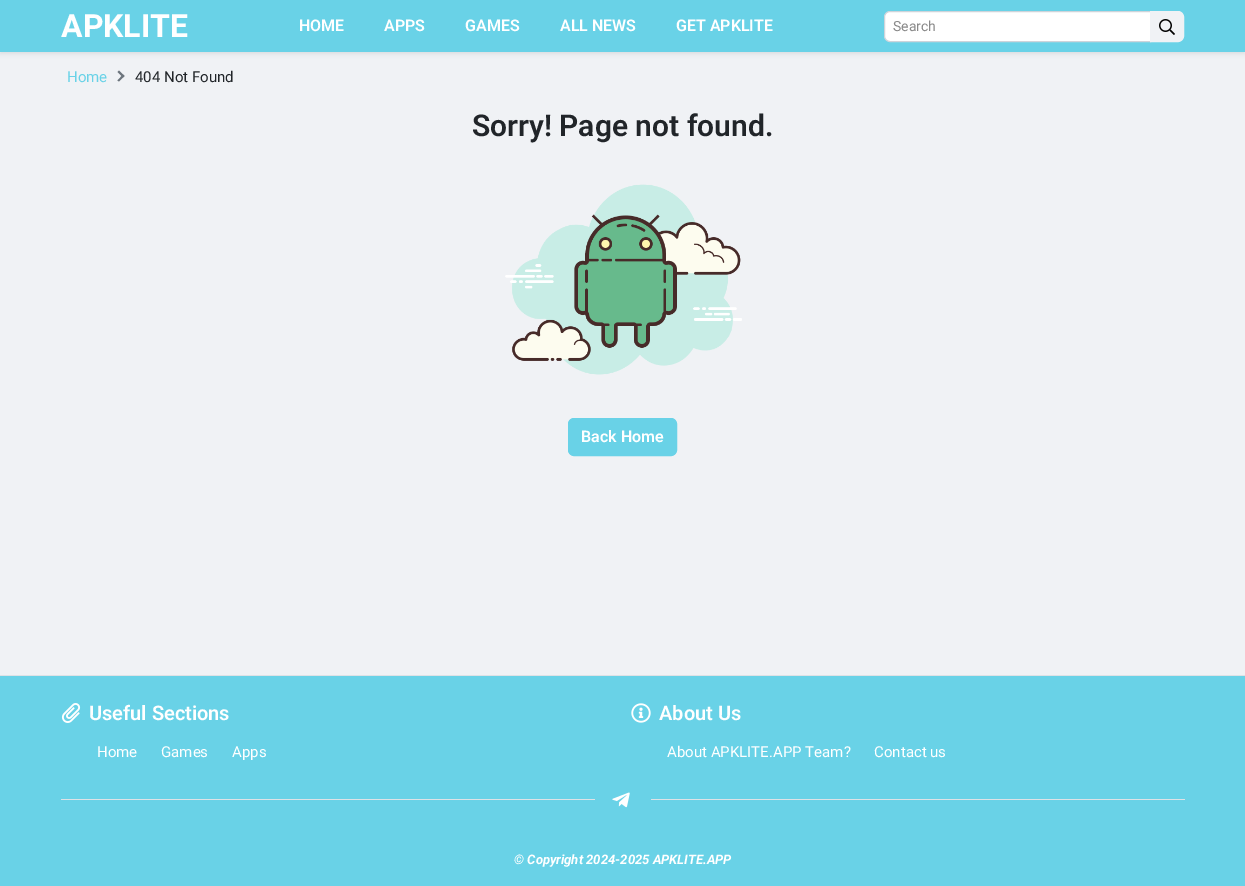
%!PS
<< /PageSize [1245 886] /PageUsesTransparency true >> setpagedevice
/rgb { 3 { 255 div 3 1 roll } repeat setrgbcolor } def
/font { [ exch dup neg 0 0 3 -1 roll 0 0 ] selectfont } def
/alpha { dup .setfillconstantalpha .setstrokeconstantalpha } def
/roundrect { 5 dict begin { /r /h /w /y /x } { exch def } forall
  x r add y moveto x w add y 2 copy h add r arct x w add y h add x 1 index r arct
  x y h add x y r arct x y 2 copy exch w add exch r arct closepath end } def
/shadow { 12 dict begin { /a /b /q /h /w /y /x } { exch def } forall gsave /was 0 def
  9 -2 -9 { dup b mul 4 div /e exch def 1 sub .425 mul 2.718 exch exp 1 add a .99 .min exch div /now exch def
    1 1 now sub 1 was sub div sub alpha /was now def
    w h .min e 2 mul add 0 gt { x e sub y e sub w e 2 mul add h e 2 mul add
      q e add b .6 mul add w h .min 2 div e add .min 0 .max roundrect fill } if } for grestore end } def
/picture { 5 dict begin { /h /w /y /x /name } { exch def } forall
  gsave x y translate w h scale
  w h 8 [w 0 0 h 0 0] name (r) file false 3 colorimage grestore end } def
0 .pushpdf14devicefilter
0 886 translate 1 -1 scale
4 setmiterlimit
240 242 245 rgb
0 0 1245 886 rectfill
0 0 0 rgb
0 2 1245 52 0 2 0.07 shadow
105 210 231 rgb
0 0 1245 52 rectfill
255 255 255 rgb
890 11.5 moveto 1150.5 11.5 lineto 1150.5 41.5 lineto 890 41.5 lineto 887 41.5 884.5 39 884.5 36 curveto 884.5 17 lineto 884.5 14 887 11.5 890 11.5 curveto closepath gsave fill grestore
206 212 218 rgb
stroke
240 242 245 rgb
1150.5 11.5 moveto 1178 11.5 lineto 1181 11.5 1183.5 14 1183.5 17 curveto 1183.5 36 lineto 1183.5 39 1181 41.5 1178 41.5 curveto 1150.5 41.5 lineto closepath gsave fill grestore
stroke
(img/1.rgb) 1159 19 16 16 picture
108 117 125 rgb
119 70.5 moveto 124.5 76 lineto 123 77.5 lineto 117.5 72 lineto closepath fill
123 74.5 moveto 124.5 76 lineto 119 81.5 lineto 117.5 80.5 lineto closepath fill
(img/2.rgb) 505 184 237 191 picture
105 210 231 rgb
568.5 418.5 108 37 5.5 roundrect gsave fill grestore
stroke
0 676 1245 210 rectfill
222 226 230 rgb
0 675 1245 1 rectfill
(img/3.rgb) 61 703 20 20 picture
(img/4.rgb) 631 703 20 20 picture
61 799 534 1 rectfill
(img/5.rgb) 612 792 18 16 picture
651 799 534 1 rectfill
/Roboto-Bold 32 font
255 255 255 rgb
61 37 moveto (APKLITE) show
/Roboto-SemiBold 16 font
[
  [(HOME) 299 31]
  [(APPS) 384 31]
  [(GAMES) 465 31]
  [(ALL NEWS) 560 31]
  [(GET APKLITE) 676 31]
] { aload pop moveto show } forall
/Roboto-Regular 14 font
137 137 137 rgb
893 31 moveto (Search) show
/Roboto-Regular 15 font
105 210 231 rgb
67 82 moveto (Home) show
33 37 41 rgb
135 82 moveto (404 Not Found) show
/Roboto-SemiBold 30 font
472 136 moveto (Sorry! Page not found.) show
/Roboto-SemiBold 16 font
255 255 255 rgb
581 442 moveto (Back Home) show
/Roboto-SemiBold 20 font
89 720 moveto (Useful Sections) show
/Roboto-Regular 15 font
[
  [(Home) 97 757]
  [(Games) 161 757]
  [(Apps) 232 757]
] { aload pop moveto show } forall
/Roboto-SemiBold 20 font
659 720 moveto (About Us) show
/Roboto-Regular 15 font
667 757 moveto (About APKLITE.APP Team?) show
874 757 moveto (Contact us) show
/Roboto-BoldItalic 13.1 font
514 864 moveto (© Copyright 2024-2025 APKLITE.APP) show
.poppdf14devicefilter showpage
